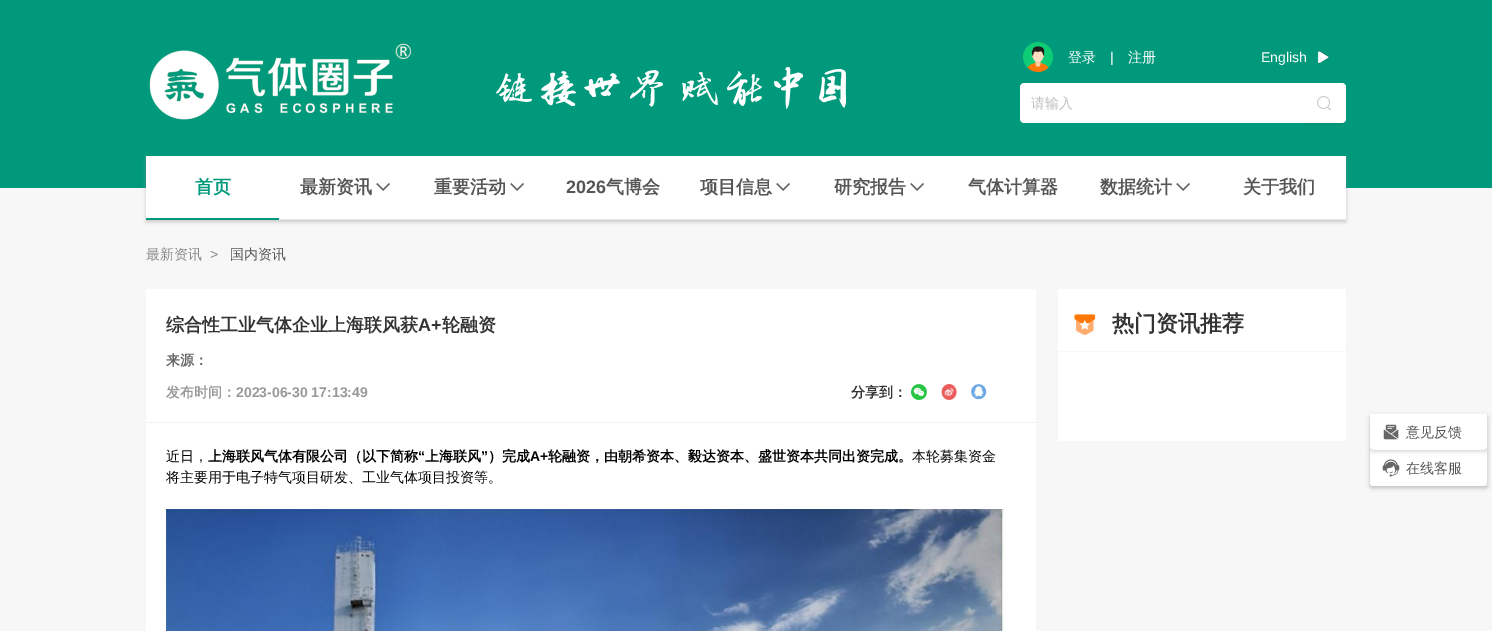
%!PS
<< /PageSize [1492 631] /PageUsesTransparency true >> setpagedevice
/rgb { 3 { 255 div 3 1 roll } repeat setrgbcolor } def
/font { [ exch dup neg 0 0 3 -1 roll 0 0 ] selectfont } def
/alpha { dup .setfillconstantalpha .setstrokeconstantalpha } def
/roundrect { 5 dict begin { /r /h /w /y /x } { exch def } forall
  x r add y moveto x w add y 2 copy h add r arct x w add y h add x 1 index r arct
  x y h add x y r arct x y 2 copy exch w add exch r arct closepath end } def
/shadow { 12 dict begin { /a /b /q /h /w /y /x } { exch def } forall gsave /was 0 def
  9 -2 -9 { dup b mul 4 div /e exch def 1 sub .425 mul 2.718 exch exp 1 add a .99 .min exch div /now exch def
    1 1 now sub 1 was sub div sub alpha /was now def
    w h .min e 2 mul add 0 gt { x e sub y e sub w e 2 mul add h e 2 mul add
      q e add b .6 mul add w h .min 2 div e add .min 0 .max roundrect fill } if } for grestore end } def
/picture { 5 dict begin { /h /w /y /x /name } { exch def } forall
  gsave x y translate w h scale
  w h 8 [w 0 0 h 0 0] name (r) file false 3 colorimage grestore end } def
0 .pushpdf14devicefilter
0 631 translate 1 -1 scale
4 setmiterlimit
247 247 247 rgb
0 0 1492 631 rectfill
0 153 123 rgb
0 0 1492 188 rectfill
(img/1.rgb) 149 43 263 77 picture
(img/2.rgb) 496 67 350 42 picture
(img/3.rgb) 1023 42 30 30 picture
(img/4.rgb) 1317 51 13 13 picture
255 255 255 rgb
1024 83 moveto 1302 83 lineto 1302 123 lineto 1024 123 lineto 1022 123 1020 121 1020 119 curveto 1020 87 lineto 1020 85 1022 83 1024 83 curveto closepath fill
0.04 alpha
0 0 0 rgb
1302 123 moveto 1302 125 lineto 1342 125 lineto 1344 125 1346 123 1346 121 curveto 1346 119 lineto 1346 121 1344 123 1342 123 curveto closepath fill
1 alpha
255 255 255 rgb
1302 83 moveto 1342 83 lineto 1344 83 1346 85 1346 87 curveto 1346 119 lineto 1346 121 1344 123 1342 123 curveto 1302 123 lineto closepath fill
(img/5.rgb) 1317 96 14 15 picture
155 155 155 rgb
146 158 1200 64 0 2 0.5 shadow
[
  [146 156 1200 63 255 255 255]
  [279 219 1067 1 232 232 232]
  [146 218 133 2 0 153 123]
] { aload pop rgb rectfill } forall
(img/6.rgb) 376 183 14 8 picture
(img/6.rgb) 510 183 14 8 picture
(img/6.rgb) 776 183 14 8 picture
(img/6.rgb) 910 183 14 8 picture
(img/6.rgb) 1176 183 14 8 picture
255 255 255 rgb
146 289 890 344 2 roundrect fill
242 242 242 rgb
146 422 890 1 rectfill
(img/7.rgb) 911 384 16 16 picture
(img/8.rgb) 941 384 16 16 picture
(img/9.rgb) 971 384 16 16 picture
(img/10.rgb) 166 509 838 122 picture
255 255 255 rgb
1058 289 288 152 2 roundrect fill
247 247 247 rgb
1058 351 288 1 rectfill
(img/11.rgb) 1074 314 22 21 picture
181 180 180 rgb
1370 416 118 72 2 2 0.5 shadow
255 255 255 rgb
1370 414 moveto 1488 414 lineto 1488 484 lineto 1488 485 1487 486 1486 486 curveto 1372 486 lineto 1371 486 1370 485 1370 484 curveto closepath fill
232 232 232 rgb
1487 414 1 71 rectfill
gsave
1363 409 moveto 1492 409 lineto 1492 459 lineto 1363 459 lineto closepath 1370 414 moveto 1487 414 lineto 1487 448 lineto 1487 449 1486 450 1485 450 curveto 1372 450 lineto 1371 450 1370 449 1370 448 curveto closepath eoclip newpath
181 180 180 rgb
1370 416 117 36 2 2 0.5 shadow
grestore
(img/12.rgb) 1383 424 16 16 picture
gsave
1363 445 moveto 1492 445 lineto 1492 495 lineto 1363 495 lineto closepath 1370 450 moveto 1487 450 lineto 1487 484 lineto 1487 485 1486 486 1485 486 curveto 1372 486 lineto 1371 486 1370 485 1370 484 curveto closepath eoclip newpath
181 180 180 rgb
1370 452 117 36 2 2 0.5 shadow
grestore
(img/13.rgb) 1382 459 18 18 picture
/WenQuanYiZenHei-Medium 14 font
255 255 255 rgb
1068 62 moveto (登录) show
/LiberationSans-Regular 14 font
1110 62 moveto (|) show
/WenQuanYiZenHei-Medium 14 font
1128 62 moveto (注册) show
/LiberationSans-Regular 14 font
1261 62 moveto (English) show
/WenQuanYiZenHei-Medium 14 font
191 191 191 rgb
1031 108 moveto (请输入) show
/WenQuanYiZenHei-Bold 18 font
0 153 123 rgb
195 193 moveto (首页) show
86 86 86 rgb
300 193 moveto (最新资讯) show
434 193 moveto (重要活动) show
/LiberationSans-Bold 18 font
566 193 moveto (2026) show
/WenQuanYiZenHei-Bold 18 font
[
  [(气博会) 606 193]
  [(项目信息) 700 193]
  [(研究报告) 834 193]
  [(气体计算器) 968 193]
  [(数据统计) 1100 193]
  [(关于我们) 1243 193]
] { aload pop moveto show } forall
/WenQuanYiZenHei-Medium 14 font
136 136 136 rgb
146 259 moveto (最新资讯) show
/LiberationSans-Regular 14 font
210 259 moveto (>) show
/WenQuanYiZenHei-Medium 14 font
86 86 86 rgb
230 259 moveto (国内资讯) show
/WenQuanYiZenHei-Bold 18 font
51 51 51 rgb
166 331 moveto (综合性工业气体企业上海联风获) show
/LiberationSans-Bold 18 font
418 331 moveto (A+) show
/WenQuanYiZenHei-Bold 18 font
442 331 moveto (轮融资) show
/WenQuanYiZenHei-Bold 14 font
102 102 102 rgb
166 365 moveto (来源：) show
153 153 153 rgb
166 397 moveto (发布时间：) show
/LiberationSans-Bold 14 font
236 397 moveto (2023-06-30 17:13:49) show
/WenQuanYiZenHei-Bold 14 font
51 51 51 rgb
851 397 moveto (分享到：) show
/WenQuanYiZenHei-Medium 14 font
0 0 0 rgb
166 461 moveto (近日，) show
/WenQuanYiZenHei-Bold 14 font
208 461 moveto (上海联风气体有限公司（以下简称) show
/LiberationSans-Bold 14 font
418 461 moveto (“) show
/WenQuanYiZenHei-Bold 14 font
425 461 moveto (上海联风) show
/LiberationSans-Bold 14 font
481 461 moveto (”) show
/WenQuanYiZenHei-Bold 14 font
488 461 moveto (）完成) show
/LiberationSans-Bold 14 font
530 461 moveto (A+) show
/WenQuanYiZenHei-Bold 14 font
548 461 moveto (轮融资，由朝希资本、毅达资本、盛世资本共同出资完成。) show
/WenQuanYiZenHei-Medium 14 font
912 461 moveto (本轮募集资金) show
166 482 moveto (将主要用于电子特气项目研发、工业气体项目投资等。) show
/WenQuanYiZenHei-Bold 22 font
51 51 51 rgb
1112 331 moveto (热门资讯推荐) show
/WenQuanYiZenHei-Medium 14 font
86 86 86 rgb
1406 437 moveto (意见反馈) show
1406 473 moveto (在线客服) show
.poppdf14devicefilter showpage
